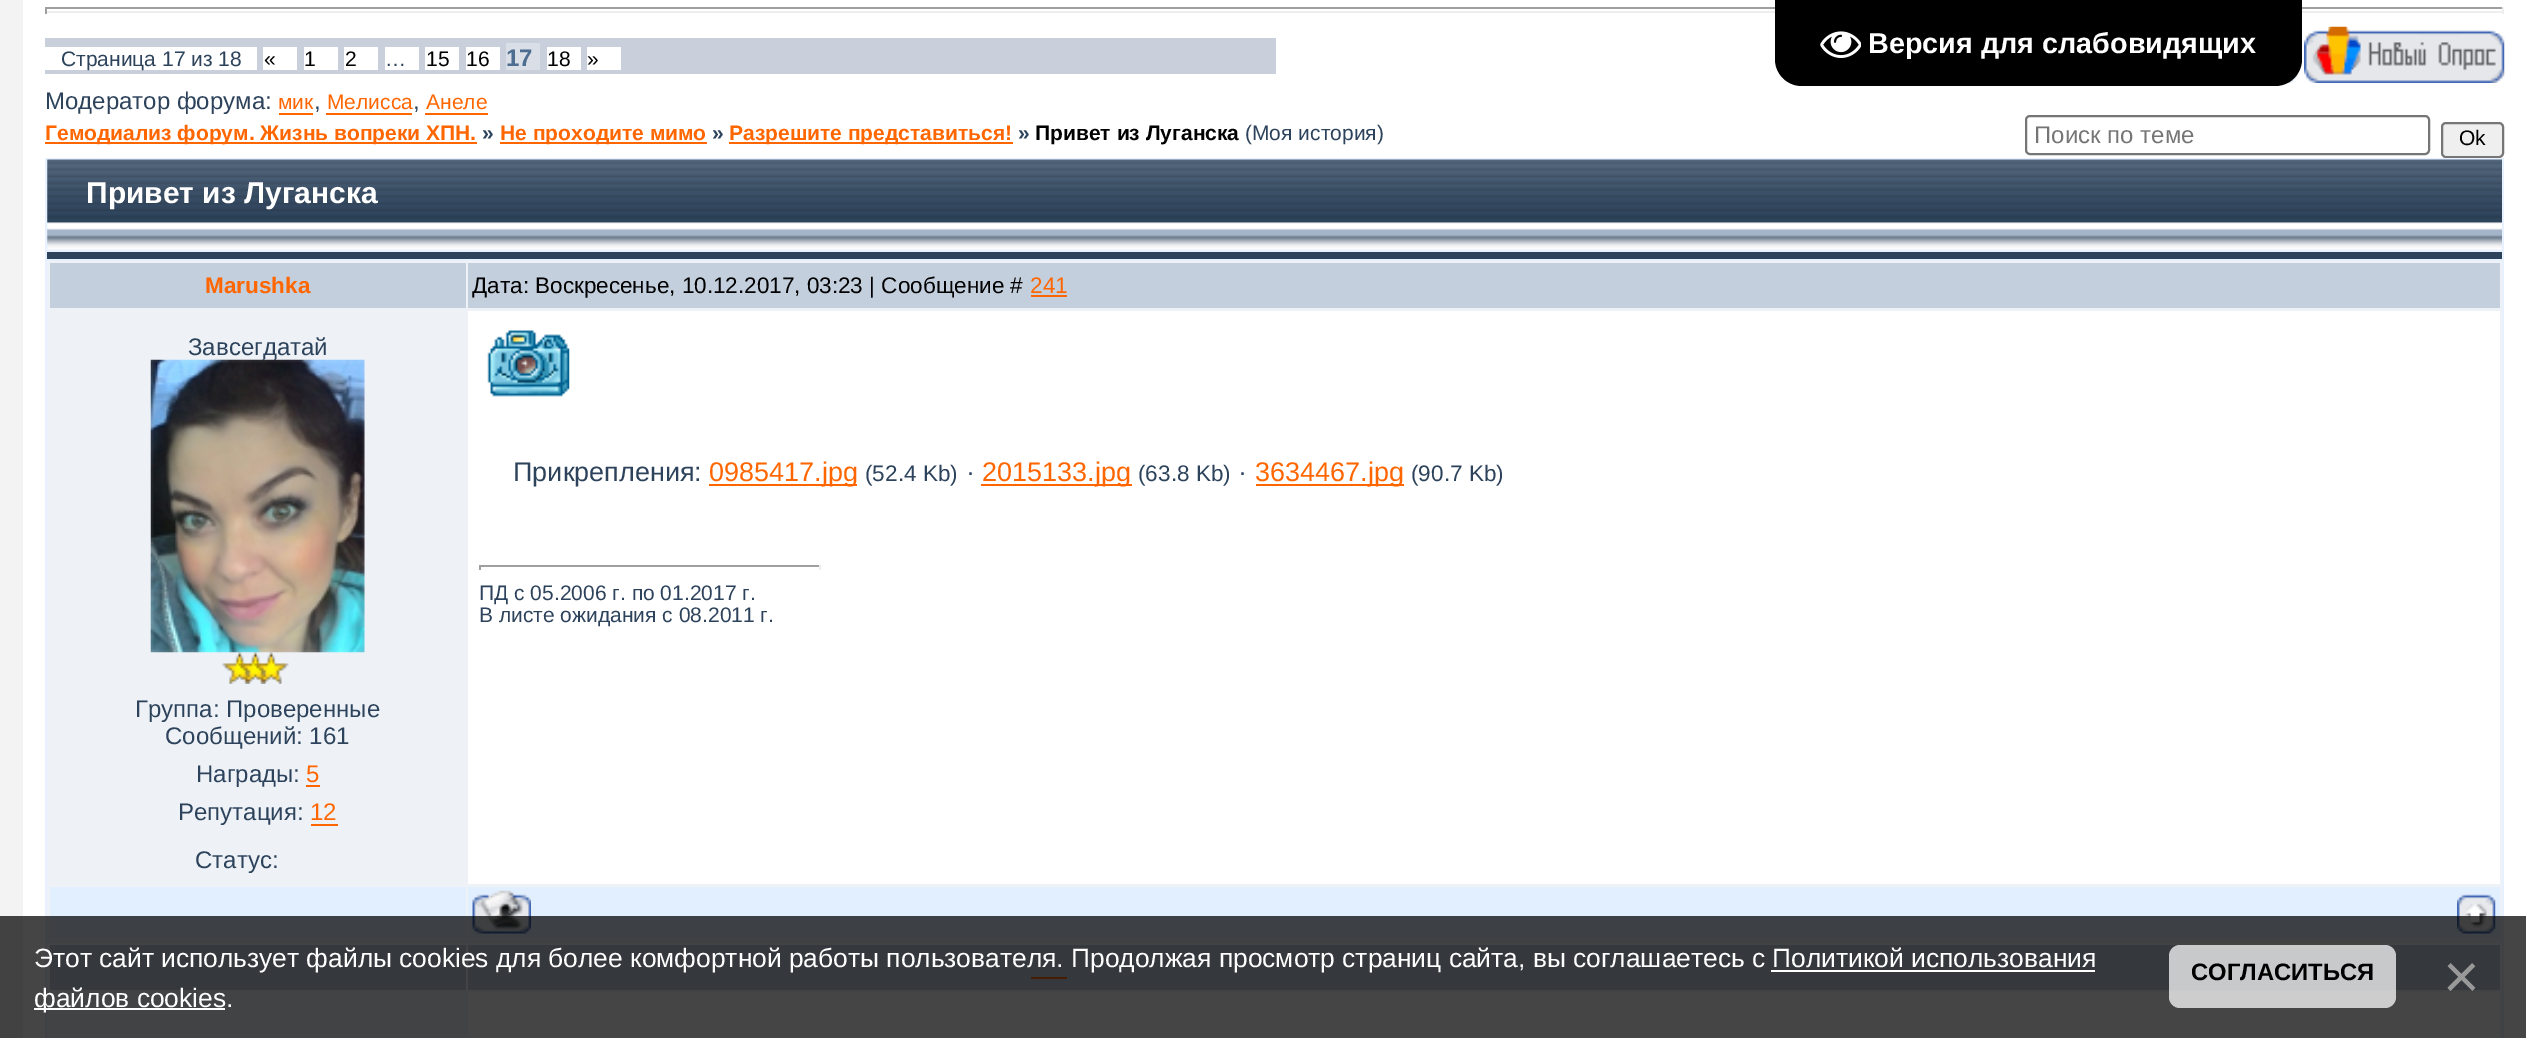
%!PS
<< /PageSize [2526 1038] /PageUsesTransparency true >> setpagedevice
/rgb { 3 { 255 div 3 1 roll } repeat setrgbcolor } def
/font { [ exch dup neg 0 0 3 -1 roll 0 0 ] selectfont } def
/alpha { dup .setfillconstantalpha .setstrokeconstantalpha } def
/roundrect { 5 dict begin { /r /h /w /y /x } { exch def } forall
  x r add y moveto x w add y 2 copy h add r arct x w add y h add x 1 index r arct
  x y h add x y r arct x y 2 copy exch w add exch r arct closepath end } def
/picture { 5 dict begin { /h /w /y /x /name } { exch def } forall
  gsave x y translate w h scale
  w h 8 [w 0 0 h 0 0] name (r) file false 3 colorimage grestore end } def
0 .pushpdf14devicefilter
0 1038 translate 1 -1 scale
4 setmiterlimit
255 255 255 rgb
0 0 2526 1038 rectfill
[
  [45 7 2459 2 159 159 159]
  [2502 7 2 7 238 238 238]
  [45 11 2459 2 238 238 238]
] { aload pop rgb rectfill } forall
(img/2.rgb) 2287 73 11 10 picture
0 0 0 rgb
1775 0 moveto 2302 0 lineto 2302 59 lineto 2302 74 2290 86 2275 86 curveto 1802 86 lineto 1787 86 1775 74 1775 59 curveto closepath fill
(img/1.rgb) 1820 31 41 27 picture
[
  [0 0 23 1038 243 243 243]
  [45 7 2 7 159 159 159]
  [45 38 1231 36 201 208 219]
  [45 47 212 23 255 255 255]
  [263 47 34 23 255 255 255]
  [304 47 34 23 255 255 255]
  [344 47 34 23 255 255 255]
  [385 47 34 23 255 255 255]
  [425 47 34 23 255 255 255]
  [466 47 34 23 255 255 255]
  [506 43 34 27 218 223 231]
  [547 47 34 23 255 255 255]
  [587 47 34 23 255 255 255]
] { aload pop rgb rectfill } forall
(img/3.rgb) 2304 26 201 57 picture
[
  [279 113 34 2 255 102 0]
  [326 113 86 2 255 102 0]
  [425 113 63 2 255 102 0]
  [45 142 432 2 255 102 0]
  [500 142 207 2 255 102 0]
  [729 142 284 2 255 102 0]
] { aload pop rgb rectfill } forall
118 118 118 rgb
2 setlinewidth
2026 116 403 38 4 roundrect stroke
239 239 239 rgb
2442 123 61 34 4 roundrect gsave fill grestore
118 118 118 rgb
stroke
231 241 255 rgb
45 158 2459 880 rectfill
(img/4.rgb) 47 159 2455 91 picture
[
  [47 252 2455 7 45 67 91]
  [47 261 2455 680 238 242 247]
  [50 263 416 45 196 207 221]
  [468 263 2032 45 196 207 221]
  [1031 295 36 2 255 102 0]
  [306 785 14 2 255 102 0]
  [311 824 27 2 255 102 0]
  [468 311 2032 573 255 255 255]
] { aload pop rgb rectfill } forall
(img/7.rgb) 487 330 83 67 picture
[
  [709 484 148 2 255 102 0]
  [981 484 151 2 255 102 0]
  [1256 484 148 2 255 102 0]
  [479 565 342 2 159 159 159]
  [819 565 2 5 238 238 238]
  [479 565 2 5 159 159 159]
  [50 887 416 51 226 239 255]
  [468 887 2032 51 226 239 255]
] { aload pop rgb rectfill } forall
(img/8.rgb) 472 890 59 44 picture
(img/9.rgb) 2457 894 39 40 picture
[
  [47 943 2455 95 245 249 253]
  [50 945 416 45 196 207 221]
  [468 945 2032 45 196 207 221]
  [1031 977 36 2 255 102 0]
  [468 992 2032 46 255 255 255]
] { aload pop rgb rectfill } forall
0.73 alpha
[
  [0 916 2526 122 0 0 0]
] { aload pop rgb rectfill } forall
1 alpha
[
  [1771 970 324 2 255 255 255]
  [34 1008 191 2 255 255 255]
] { aload pop rgb rectfill } forall
0.73 alpha
2169 945 227 63 11 roundrect fill
/LiberationSans-Bold 28.75 font
1 alpha
1868 53 moveto (Версия для слабовидящих) show
/LiberationSans-Regular 21 font
45 67 91 rgb
61 66 moveto (Страница 17 из 18) show
0 0 0 rgb
[
  [(«) 264 66]
  [(1) 304 66]
  [(2) 345 66]
] { aload pop moveto show } forall
45 67 91 rgb
385 66 moveto (…) show
0 0 0 rgb
426 66 moveto (15) show
466 66 moveto (16) show
/LiberationSans-Bold 24 font
77 109 145 rgb
506 66 moveto (17) show
/LiberationSans-Regular 21 font
0 0 0 rgb
547 66 moveto (18) show
587 66 moveto (») show
/LiberationSans-Regular 24 font
45 67 91 rgb
45 109 moveto (Модератор форума:) show
/LiberationSans-Regular 21 font
255 102 0 rgb
278 109 moveto (мик) show
/LiberationSans-Regular 24 font
45 67 91 rgb
314 109 moveto (,) show
/LiberationSans-Regular 21 font
255 102 0 rgb
327 109 moveto (Мелисса) show
/LiberationSans-Regular 24 font
45 67 91 rgb
413 109 moveto (,) show
/LiberationSans-Regular 21 font
255 102 0 rgb
426 109 moveto (Анеле) show
/LiberationSans-Bold 21 font
45 140 moveto (Гемодиализ форум. Жизнь вопреки ХПН.) show
45 67 91 rgb
482 140 moveto (») show
255 102 0 rgb
500 140 moveto (Не проходите мимо) show
45 67 91 rgb
712 140 moveto (») show
255 102 0 rgb
729 140 moveto (Разрешите представиться!) show
45 67 91 rgb
1018 140 moveto (») show
0 0 0 rgb
1035 140 moveto (Привет из Луганска) show
/LiberationSans-Regular 21 font
45 67 91 rgb
1245 140 moveto (\(Моя история\)) show
/LiberationSans-Regular 24 font
117 117 117 rgb
2034 143 moveto (Поиск по теме) show
/LiberationSans-Regular 21 font
0 0 0 rgb
2459 145 moveto (Ok) show
/LiberationSans-Bold 30 font
255 255 255 rgb
86 203 moveto (Привет из Луганска) show
/LiberationSans-Bold 22.5 font
255 102 0 rgb
205 293 moveto (Marushka) show
/LiberationSans-Regular 22.5 font
0 0 0 rgb
472 293 moveto (Дата: Воскресенье, 10.12.2017, 03:23 | Сообщение #) show
255 102 0 rgb
1030 293 moveto (241) show
/LiberationSans-Regular 24 font
45 67 91 rgb
188 355 moveto (Завсегдатай) show
(img/5.rgb) 150 359 215 294 picture
(img/6.rgb) 222 652 67 32 picture
[
  [(Группа: Проверенные) 135 717]
  [(Сообщений: 161) 165 744]
  [(Награды:) 196 782]
] { aload pop moveto show } forall
255 102 0 rgb
306 782 moveto (5) show
45 67 91 rgb
178 820 moveto (Репутация:) show
255 102 0 rgb
310 820 moveto (12) show
45 67 91 rgb
195 868 moveto (Статус:) show
/LiberationSans-Regular 27 font
513 481 moveto (Прикрепления:) show
255 102 0 rgb
709 481 moveto (0985417.jpg) show
/LiberationSans-Regular 22.5 font
45 67 91 rgb
865 481 moveto (\(52.4 Kb\)) show
/LiberationSans-Regular 27 font
966 481 moveto (·) show
255 102 0 rgb
982 481 moveto (2015133.jpg) show
/LiberationSans-Regular 22.5 font
45 67 91 rgb
1138 481 moveto (\(63.8 Kb\)) show
/LiberationSans-Regular 27 font
1238 481 moveto (·) show
255 102 0 rgb
1255 481 moveto (3634467.jpg) show
/LiberationSans-Regular 22.5 font
45 67 91 rgb
1411 481 moveto (\(90.7 Kb\)) show
/LiberationSans-Regular 21 font
479 600 moveto (ПД с 05.2006 г. по 01.2017 г.) show
479 622 moveto (В листе ожидания с 08.2011 г.) show
/LiberationSans-Regular 26.4 font
255 255 255 rgb
34 967 moveto -0.1 0 32 (Этот сайт использует файлы cookies для более комфортной работы пользователя. Продолжая просмотр страниц сайта, вы соглашаетесь с) widthshow
1772 967 moveto (Политикой использования) show
34 1007 moveto (файлов cookies.) show
/LiberationSans-Bold 23.75 font
0 0 0 rgb
2191 980 moveto (СОГЛАСИТЬСЯ) show
/LiberationSans-Regular 63 font
153 153 153 rgb
2443 998 moveto (×) show
.poppdf14devicefilter showpage
